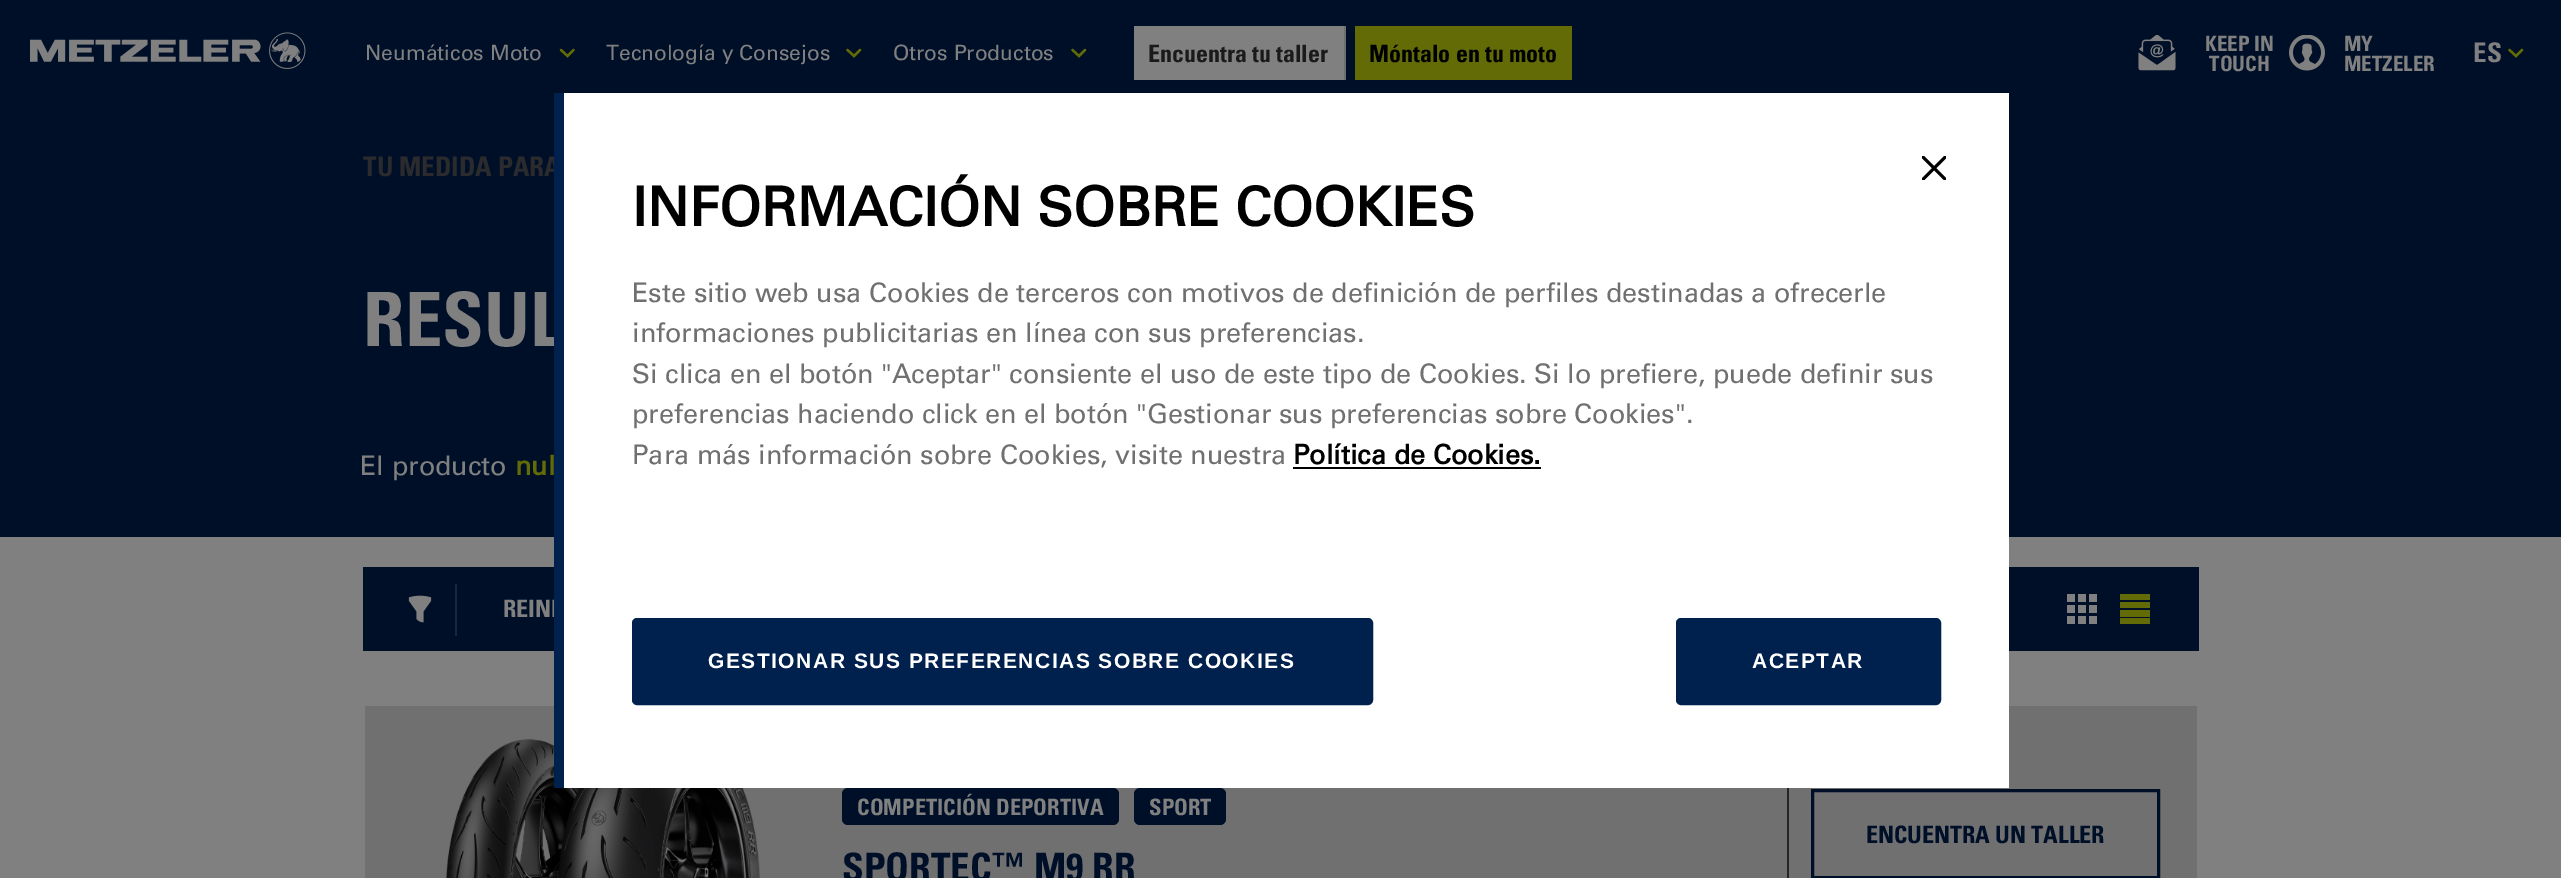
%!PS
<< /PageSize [2561 878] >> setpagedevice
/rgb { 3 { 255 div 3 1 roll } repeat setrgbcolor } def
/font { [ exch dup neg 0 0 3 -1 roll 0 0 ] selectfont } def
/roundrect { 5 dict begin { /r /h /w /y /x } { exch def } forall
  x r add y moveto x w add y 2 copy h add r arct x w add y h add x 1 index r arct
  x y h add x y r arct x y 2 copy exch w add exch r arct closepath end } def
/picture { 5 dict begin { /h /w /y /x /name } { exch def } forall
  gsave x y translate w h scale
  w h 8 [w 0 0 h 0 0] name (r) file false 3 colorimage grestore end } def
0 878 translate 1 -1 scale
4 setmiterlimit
128 128 128 rgb
0 0 2561 878 rectfill
0 15 40 rgb
0 0 2561 537 rectfill
(img/1.rgb) 30 32 276 37 picture
99 107 6 rgb
2.3 setlinewidth
1 setlinecap
561 50 moveto 567.5 56 lineto 573.5 50 lineto stroke
847.5 50 moveto 854 56 lineto 860 50 lineto stroke
1072.5 50 moveto 1079 56 lineto 1085 50 lineto stroke
[
  [1134 26 210 54 128 128 128]
  [1344 26 2 54 111 111 111]
  [1355 26 217 54 99 107 6]
] { aload pop rgb rectfill } forall
(img/2.rgb) 2138 35 38 36 picture
(img/3.rgb) 2289 35 36 36 picture
2509.5 50 moveto 2516 56 lineto 2522 50 lineto stroke
0 15 40 rgb
363 567 1836 84 rectfill
(img/4.rgb) 408 595 24 28 picture
26 38 58 rgb
455 584 2 52 rectfill
(img/5.rgb) 2067 594 30 30 picture
(img/6.rgb) 2120 594 30 30 picture
112 112 113 rgb
365 706 1832 172 rectfill
(img/7.rgb) 446 738 314 140 picture
0 15 40 rgb
842 788 277 37 6 roundrect fill
1134 788 92 37 6 roundrect fill
37 37 37 rgb
1787 788 2 90 rectfill
0 15 40 rgb
3 setlinewidth
0 setlinecap
1812.5 790.5 346 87 rectstroke
255 255 255 rgb
564 93 1445 695 rectfill
(img/8.rgb) 1922 156 24 24 picture
0 0 0 rgb
1293 467 248 2 rectfill
0 32 78 rgb
633 619 739 85 4 roundrect gsave fill grestore
2 setlinewidth
stroke
1677 619 263 85 4 roundrect gsave fill grestore
stroke
/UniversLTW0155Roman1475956-Regular 21 font
128 128 128 rgb
[
  [(Neumáticos Moto) 365 60]
  [(Tecnología y Consejos) 606 60]
  [(Otros Productos) 893 60]
] { aload pop moveto show } forall
/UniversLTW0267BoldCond-Bold 24 font
26 26 26 rgb
1148 62 moveto (Encuentra tu taller) show
0 0 0 rgb
1369 62 moveto (Móntalo en tu moto) show
/UniversLTW0267BoldCond-Bold 21 font
128 128 128 rgb
[
  [(KEEP IN) 2205 51]
  [(TOUCH) 2209 71]
  [(MY) 2344 51]
  [(METZELER) 2344 71]
] { aload pop moveto show } forall
/UniversLTW0267BoldCond-Bold 27 font
2473 62 moveto (ES) show
43 43 45 rgb
363 176 moveto (TU MEDIDA PARA) show
/UniversLTW0267BoldCond-Bold 75 font
128 128 128 rgb
363 346 moveto (RESUL) show
/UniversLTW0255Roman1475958-Regular 27 font
360 475 moveto (El producto) show
/UniversLTW0255Roman1475958-Bold 27 font
99 107 6 rgb
515 475 moveto (nul) show
/UniversLTW0267BoldCond-Bold 24 font
128 128 128 rgb
503 617 moveto (REINI) show
/UniversLTW0267BoldCond-Bold 22.5 font
857 815 moveto (COMPETICIÓN DEPORTIVA) show
1149 815 moveto (SPORT) show
/UniversLTW0267BoldCond-Bold 39 font
0 15 40 rgb
842 881 moveto (SPORTEC™ M9 RR) show
/UniversLTW0267BoldCond-Bold 24 font
1866 843 moveto (ENCUENTRA UN TALLER) show
0 32 78 rgb
554 93 10 695 rectfill
/UniversLTW0255Roman1475958-Bold 54 font
0 0 0 rgb
632 226 moveto (INFORMACIÓN SOBRE COOKIES) show
/UniversLTW0255Roman1475958-Regular 27 font
112 112 112 rgb
[
  [(Este sitio web usa Cookies de terceros con motivos de definición de perfiles destinadas a ofrecerle) 632 302]
  [(informaciones publicitarias en línea con sus preferencias.) 632 342]
  [(Si clica en el botón "Aceptar" consiente el uso de este tipo de Cookies. Si lo prefiere, puede definir sus) 632 383]
  [(preferencias haciendo click en el botón "Gestionar sus preferencias sobre Cookies".) 632 423]
  [(Para más información sobre Cookies, visite nuestra) 632 464]
] { aload pop moveto show } forall
/UniversLTW0255Roman1475958-Bold 27 font
0 0 0 rgb
1293 464 moveto (Política de Cookies.) show
/LiberationSans-Bold 21 font
255 255 255 rgb
708 668 moveto 1.5 0 (GESTIONAR SUS PREFERENCIAS SOBRE COOKIES) ashow
1752 668 moveto 1.5 0 (ACEPTAR) ashow
showpage
